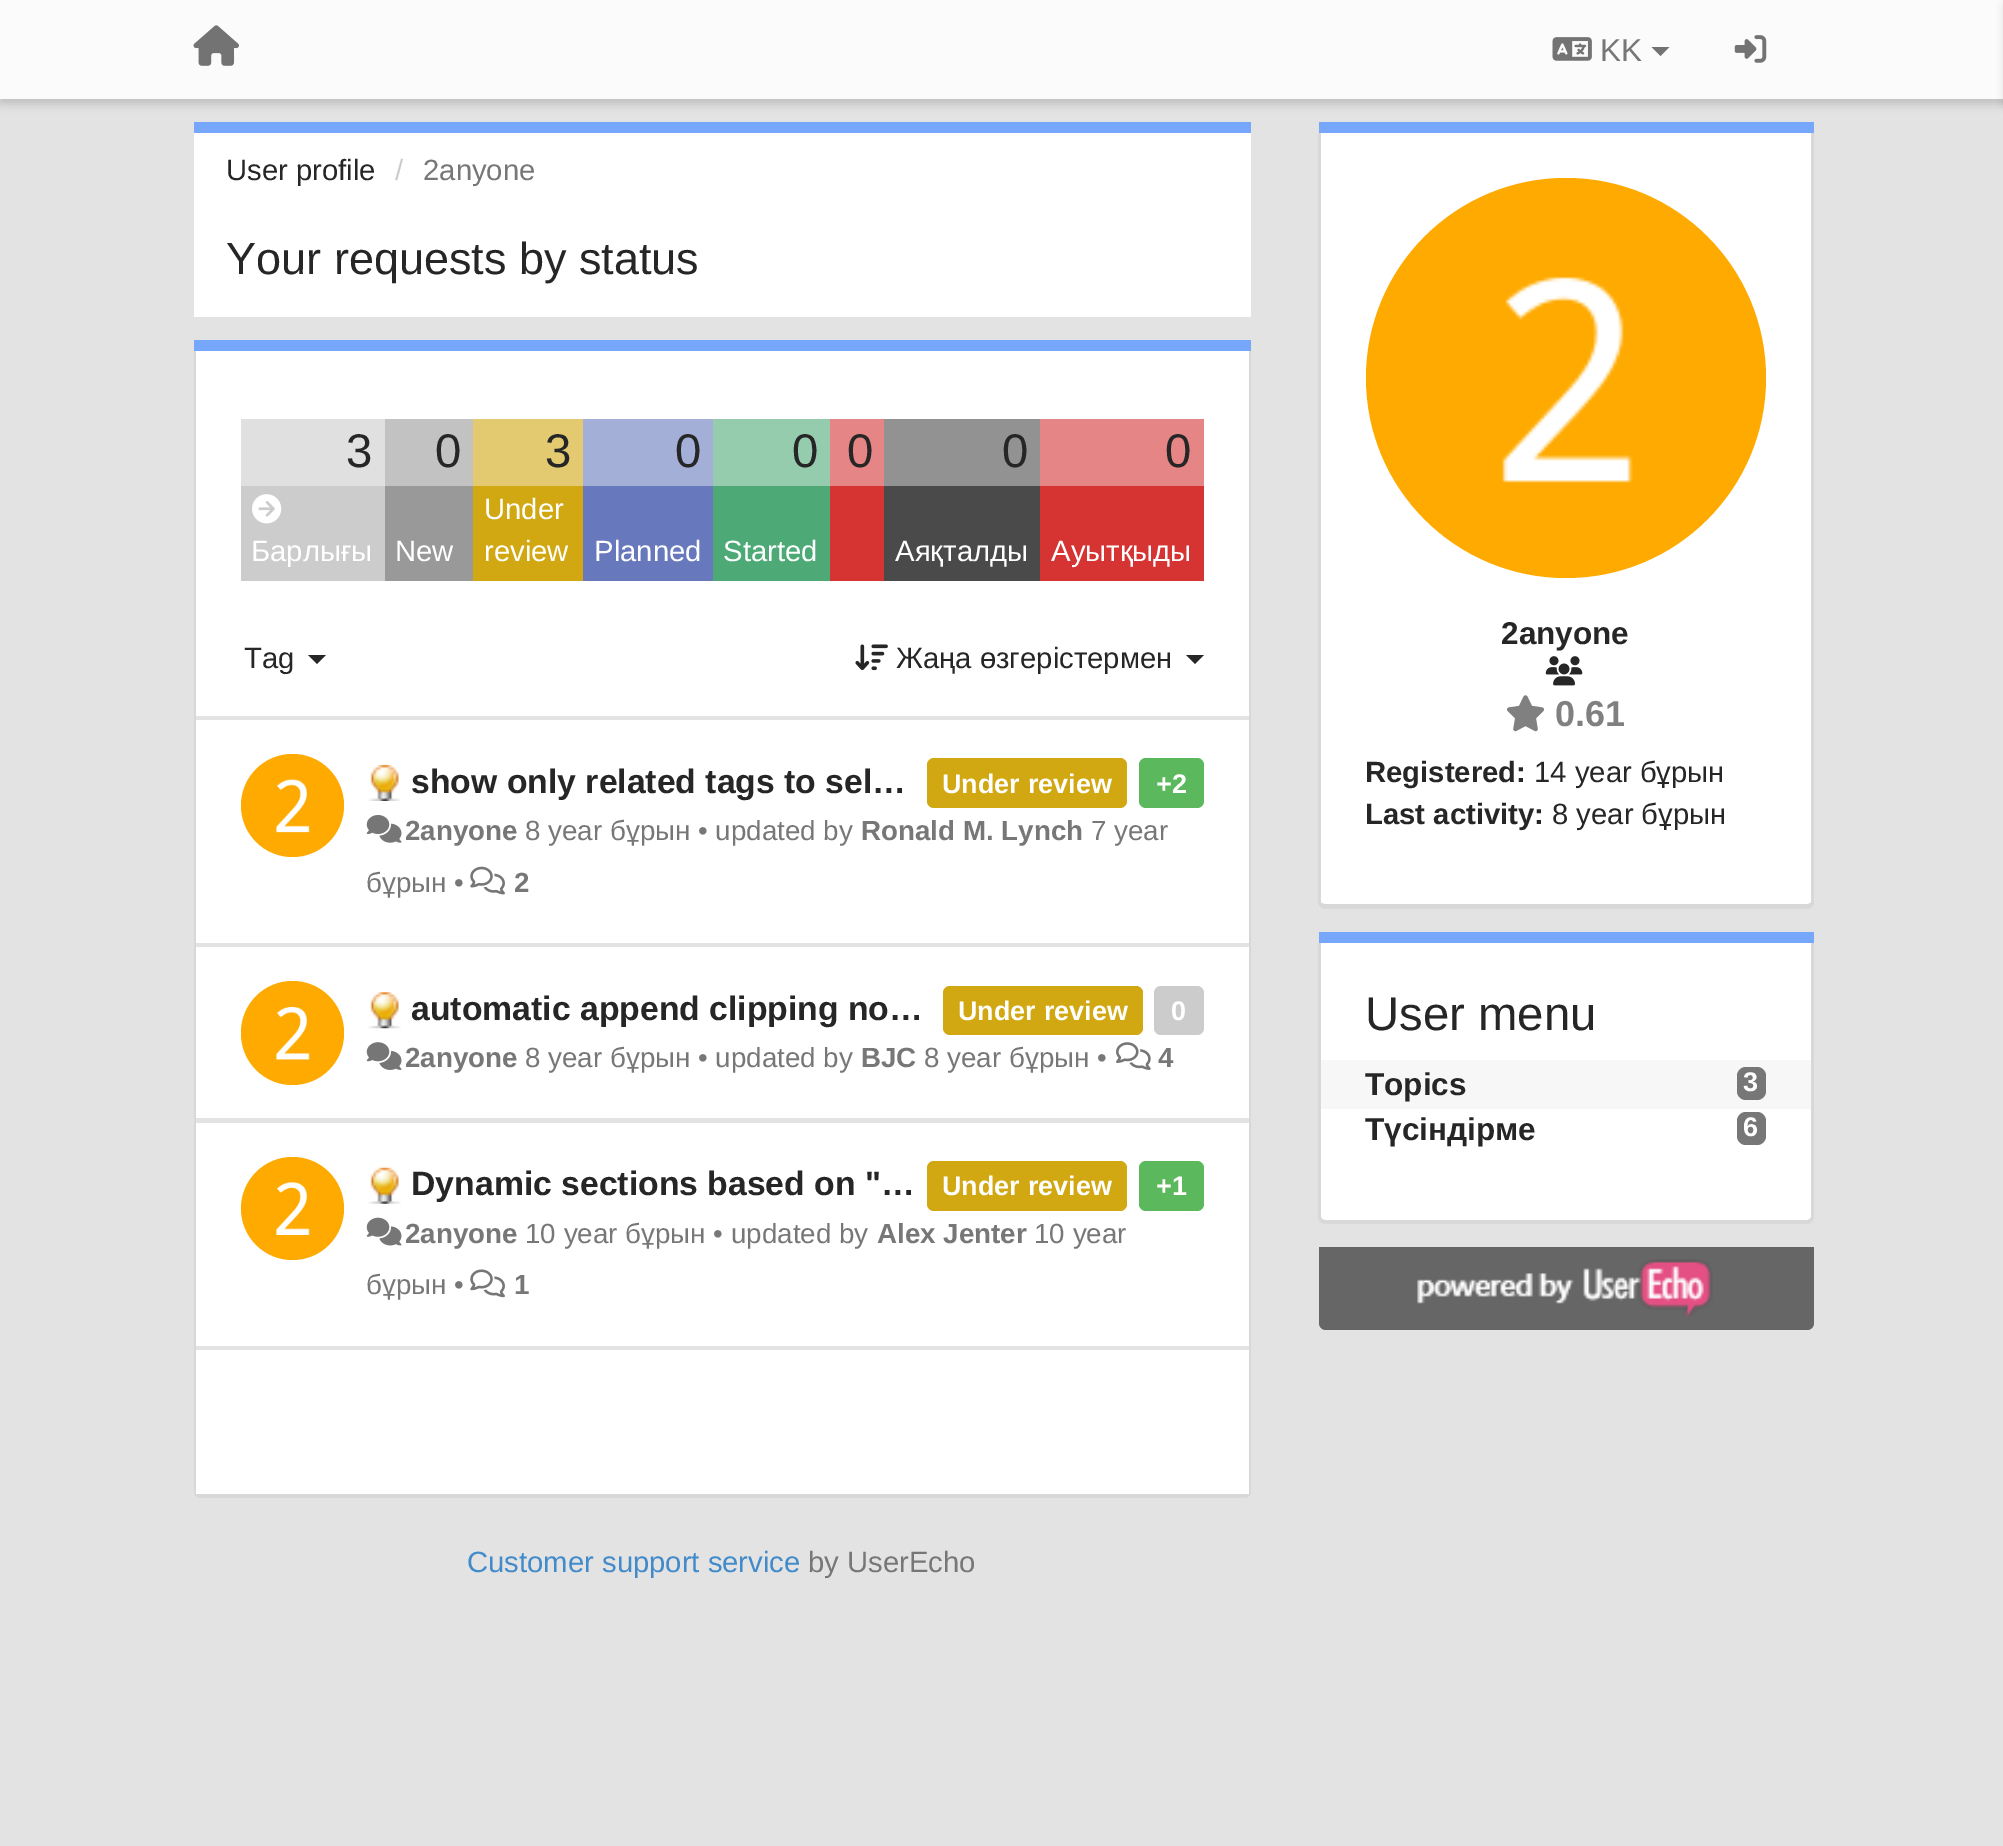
%!PS
<< /PageSize [2003 1846] /PageUsesTransparency true >> setpagedevice
/rgb { 3 { 255 div 3 1 roll } repeat setrgbcolor } def
/font { [ exch dup neg 0 0 3 -1 roll 0 0 ] selectfont } def
/alpha { dup .setfillconstantalpha .setstrokeconstantalpha } def
/circle { newpath 0 360 arc closepath } def
/roundrect { 5 dict begin { /r /h /w /y /x } { exch def } forall
  x r add y moveto x w add y 2 copy h add r arct x w add y h add x 1 index r arct
  x y h add x y r arct x y 2 copy exch w add exch r arct closepath end } def
/shadow { 12 dict begin { /a /b /q /h /w /y /x } { exch def } forall gsave /was 0 def
  9 -2 -9 { dup b mul 4 div /e exch def 1 sub .425 mul 2.718 exch exp 1 add a .99 .min exch div /now exch def
    1 1 now sub 1 was sub div sub alpha /was now def
    w h .min e 2 mul add 0 gt { x e sub y e sub w e 2 mul add h e 2 mul add
      q e add b .6 mul add w h .min 2 div e add .min 0 .max roundrect fill } if } for grestore end } def
/picture { 5 dict begin { /h /w /y /x /name } { exch def } forall
  gsave x y translate w h scale
  w h 8 [w 0 0 h 0 0] name (r) file false 3 colorimage grestore end } def
0 .pushpdf14devicefilter
0 1846 translate 1 -1 scale
4 setmiterlimit
227 227 227 rgb
0 0 2003 1846 rectfill
0 0 0 rgb
0 5 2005 99 0 4.5 0.15 shadow
251 251 251 rgb
0 0 2003 99 rectfill
(img/1.rgb) 193 25 46 41 picture
(img/2.rgb) 1552 37 40 24 picture
115 115 115 rgb
1651.5 47 moveto 1669.5 47 lineto 1660.5 56 lineto closepath fill
(img/3.rgb) 1734 35 33 28 picture
0 0 0 rgb
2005 5 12 99 0 4.5 0.15 shadow
[
  [194 133 1057 184 255 255 255]
  [194 122 1057 11 118 167 250]
  [194 340 1057 11 118 167 250]
] { aload pop rgb rectfill } forall
216 216 216 rgb
194 351 moveto 1251 351 lineto 1251 1492 lineto 1251 1495 1248 1498 1244 1498 curveto 200 1498 lineto 197 1498 194 1495 194 1492 curveto closepath 196 351 moveto 1249 351 lineto 1249 1492 lineto 1249 1493 1247 1494 1244 1494 curveto 200 1494 lineto 198 1494 196 1493 196 1492 curveto closepath eofill
[
  [196 351 1053 365 255 255 255]
  [241 419 144 67 224 224 224]
  [385 419 88 67 194 194 194]
  [473 419 110 67 227 202 113]
  [583 419 130 67 164 175 215]
  [713 419 117 67 148 204 173]
  [830 419 54 67 230 133 133]
  [884 419 156 67 146 146 146]
  [1040 419 164 67 230 133 133]
  [241 486 144 95 204 204 204]
] { aload pop rgb rectfill } forall
(img/4.rgb) 252 494 30 30 picture
[
  [385 486 88 95 153 153 153]
  [473 486 110 95 209 167 18]
  [583 486 130 95 103 121 188]
  [713 486 117 95 77 170 119]
  [830 486 54 95 214 51 51]
  [884 486 156 95 74 74 74]
  [1040 486 164 95 214 51 51]
] { aload pop rgb rectfill } forall
38 38 38 rgb
308 655 moveto 326 655 lineto 317 664 lineto closepath fill
(img/5.rgb) 855 644 33 27 picture
1186 655 moveto 1204 655 lineto 1195 664 lineto closepath fill
255 255 255 rgb
196 720 1053 223 rectfill
255 170 0 rgb
292.5 805.5 51.5 circle fill
(img/6.rgb) 276 779 34 54 picture
(img/7.rgb) 368 765 33 36 picture
209 167 18 rgb
927 758 200 50 7 roundrect fill
92 184 92 rgb
1139 758 65 50 7 roundrect fill
(img/8.rgb) 366 815 36 28 picture
(img/9.rgb) 470 866 35 29 picture
255 255 255 rgb
196 947 1053 171 rectfill
255 170 0 rgb
241 981 103 104 51.5 roundrect fill
(img/10.rgb) 276 1007 34 53 picture
(img/11.rgb) 368 992 33 37 picture
209 167 18 rgb
943 986 200 49 7 roundrect fill
204 204 204 rgb
1154 986 50 49 7 roundrect fill
(img/12.rgb) 366 1042 36 28 picture
(img/13.rgb) 1116 1042 35 28 picture
255 255 255 rgb
196 1123 1053 223 rectfill
255 170 0 rgb
292.5 1208.5 51.5 circle fill
(img/14.rgb) 276 1182 34 53 picture
(img/15.rgb) 367 1167 34 37 picture
209 167 18 rgb
927 1161 200 50 7 roundrect fill
92 184 92 rgb
1139 1161 65 50 7 roundrect fill
(img/16.rgb) 366 1217 36 29 picture
(img/17.rgb) 470 1269 35 29 picture
255 255 255 rgb
196 1350 1053 144 rectfill
118 167 250 rgb
1319 122 495 11 rectfill
255 255 255 rgb
1321 133 moveto 1811 133 lineto 1811 902 lineto 1811 903 1809 904 1807 904 curveto 1325 904 lineto 1323 904 1321 903 1321 902 curveto closepath fill
216 216 216 rgb
1318 133 moveto 1814 133 lineto 1814 902 lineto 1814 906 1810 909 1807 909 curveto 1325 909 lineto 1322 909 1318 906 1318 902 curveto closepath 1321 133 moveto 1811 133 lineto 1811 902 lineto 1811 903 1809 904 1807 904 curveto 1325 904 lineto 1323 904 1321 903 1321 902 curveto closepath eofill
255 170 0 rgb
1566 378 200 circle fill
(img/18.rgb) 1502 277 131 206 picture
(img/19.rgb) 1545 656 38 30 picture
(img/20.rgb) 1507 695 38 37 picture
118 167 250 rgb
1319 932 495 11 rectfill
255 255 255 rgb
1321 943 moveto 1811 943 lineto 1811 1217 lineto 1811 1218 1809 1220 1807 1220 curveto 1325 1220 lineto 1323 1220 1321 1218 1321 1217 curveto closepath fill
216 216 216 rgb
1318 943 moveto 1814 943 lineto 1814 1217 lineto 1814 1221 1810 1224 1807 1224 curveto 1325 1224 lineto 1322 1224 1318 1221 1318 1217 curveto closepath 1321 943 moveto 1811 943 lineto 1811 1217 lineto 1811 1218 1809 1220 1807 1220 curveto 1325 1220 lineto 1323 1220 1321 1218 1321 1217 curveto closepath eofill
247 247 247 rgb
1321 1060 490 49 rectfill
119 119 119 rgb
1737 1067 29 33 9 roundrect fill
1737 1112 29 33 9 roundrect fill
102 102 102 rgb
1319 1247 moveto 1814 1247 lineto 1814 1323 lineto 1814 1327 1811 1330 1807 1330 curveto 1326 1330 lineto 1322 1330 1319 1327 1319 1323 curveto closepath fill
(img/21.rgb) 1417 1259 296 58 picture
/LiberationSans-Regular 31.5 font
119 119 119 rgb
1600 61 moveto (KK) show
/LiberationSans-Regular 29.25 font
38 38 38 rgb
226 180 moveto (User profile) show
204 204 204 rgb
395 180 moveto (/) show
119 119 119 rgb
423 180 moveto (2anyone) show
/LiberationSans-Regular 45 font
38 38 38 rgb
226 274 moveto (Your requests by status) show
/LiberationSans-Regular 47.25 font
[
  [(3) 346 467]
  [(0) 435 467]
  [(3) 545 467]
  [(0) 675 467]
  [(0) 792 467]
  [(0) 847 467]
  [(0) 1002 467]
  [(0) 1165 467]
] { aload pop moveto show } forall
/LiberationSans-Regular 29.25 font
255 255 255 rgb
[
  [(Барлығы) 251 561]
  [(New) 395 561]
  [(Under) 484 519]
  [(review) 484 561]
  [(Planned) 594 561]
  [(Started) 723 561]
  [(Аяқталды) 895 561]
  [(Ауытқыды) 1051 561]
] { aload pop moveto show } forall
38 38 38 rgb
244 668 moveto (Tag) show
896 668 moveto (Жаңа өзгерістермен) show
/LiberationSans-Bold 33.75 font
411 793 moveto (show only related tags to sel…) show
/LiberationSans-Bold 27 font
255 255 255 rgb
942 793 moveto (Under review) show
1156 793 moveto (+2) show
/LiberationSans-Bold 27.75 font
119 119 119 rgb
405 840 moveto (2anyone) show
/LiberationSans-Regular 27.75 font
525 840 moveto (8 year бұрын • updated by) show
/LiberationSans-Bold 27.75 font
861 840 moveto (Ronald M. Lynch) show
/LiberationSans-Regular 27.75 font
1091 840 moveto (7 year) show
366 892 moveto (бұрын •) show
/LiberationSans-Bold 27.75 font
514 892 moveto (2) show
/LiberationSans-Bold 33.75 font
38 38 38 rgb
411 1020 moveto (automatic append clipping no…) show
/LiberationSans-Bold 27 font
255 255 255 rgb
958 1020 moveto (Under review) show
1171 1020 moveto (0) show
/LiberationSans-Bold 27.75 font
119 119 119 rgb
405 1067 moveto (2anyone) show
/LiberationSans-Regular 27.75 font
525 1067 moveto (8 year бұрын • updated by) show
/LiberationSans-Bold 27.75 font
861 1067 moveto (BJC) show
/LiberationSans-Regular 27.75 font
924 1067 moveto (8 year бұрын •) show
/LiberationSans-Bold 27.75 font
1158 1067 moveto (4) show
/LiberationSans-Bold 33.75 font
38 38 38 rgb
411 1195 moveto (Dynamic sections based on "…) show
/LiberationSans-Bold 27 font
255 255 255 rgb
942 1195 moveto (Under review) show
1156 1195 moveto (+1) show
/LiberationSans-Bold 27.75 font
119 119 119 rgb
405 1243 moveto (2anyone) show
/LiberationSans-Regular 27.75 font
525 1243 moveto (10 year бұрын • updated by) show
/LiberationSans-Bold 27.75 font
877 1243 moveto (Alex Jenter) show
/LiberationSans-Regular 27.75 font
1034 1243 moveto (10 year) show
366 1294 moveto (бұрын •) show
/LiberationSans-Bold 27.75 font
514 1294 moveto (1) show
/LiberationSans-Regular 29.25 font
66 139 202 rgb
467 1572 moveto (Customer support service) show
119 119 119 rgb
808 1572 moveto (by UserEcho) show
/LiberationSans-Bold 31.5 font
38 38 38 rgb
1501 644 moveto (2anyone) show
/LiberationSans-Bold 36 font
128 128 128 rgb
1555 726 moveto (0.61) show
/LiberationSans-Bold 29.25 font
38 38 38 rgb
1365 782 moveto (Registered:) show
/LiberationSans-Regular 29.25 font
1534 782 moveto (14 year бұрын) show
/LiberationSans-Bold 29.25 font
1365 824 moveto (Last activity:) show
/LiberationSans-Regular 29.25 font
1552 824 moveto (8 year бұрын) show
/LiberationSans-Regular 47.25 font
1365 1030 moveto (User menu) show
/LiberationSans-Bold 31.5 font
1365 1095 moveto (Topics) show
/LiberationSans-Bold 27 font
255 255 255 rgb
1743 1091 moveto (3) show
/LiberationSans-Bold 31.5 font
38 38 38 rgb
1365 1140 moveto (Түсіндірме) show
/LiberationSans-Bold 27 font
255 255 255 rgb
1743 1136 moveto (6) show
.poppdf14devicefilter showpage
